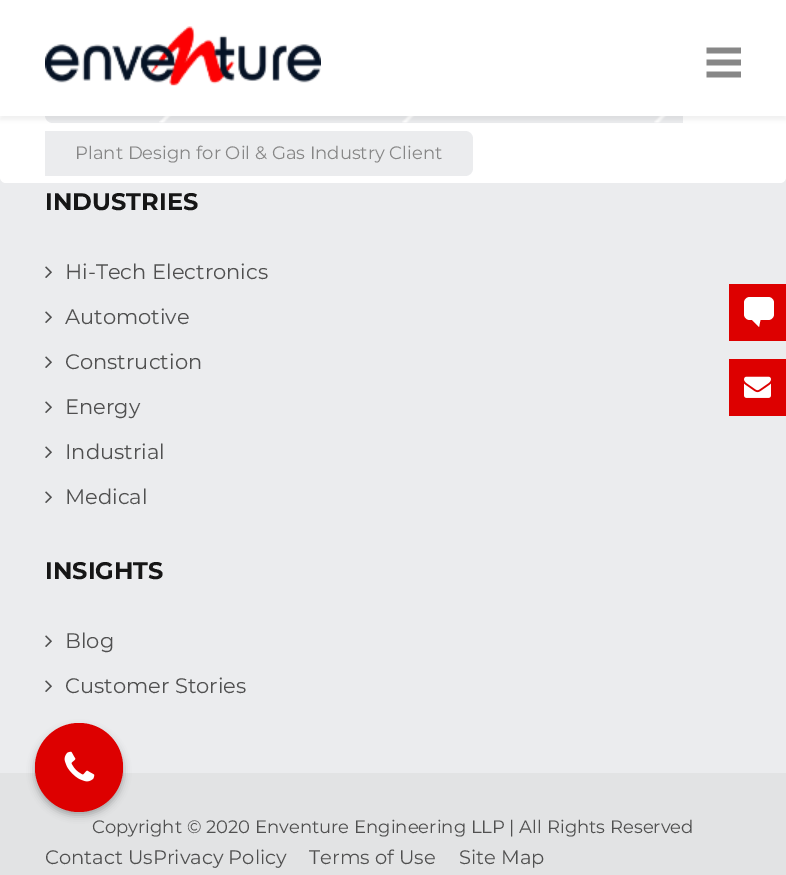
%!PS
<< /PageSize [786 875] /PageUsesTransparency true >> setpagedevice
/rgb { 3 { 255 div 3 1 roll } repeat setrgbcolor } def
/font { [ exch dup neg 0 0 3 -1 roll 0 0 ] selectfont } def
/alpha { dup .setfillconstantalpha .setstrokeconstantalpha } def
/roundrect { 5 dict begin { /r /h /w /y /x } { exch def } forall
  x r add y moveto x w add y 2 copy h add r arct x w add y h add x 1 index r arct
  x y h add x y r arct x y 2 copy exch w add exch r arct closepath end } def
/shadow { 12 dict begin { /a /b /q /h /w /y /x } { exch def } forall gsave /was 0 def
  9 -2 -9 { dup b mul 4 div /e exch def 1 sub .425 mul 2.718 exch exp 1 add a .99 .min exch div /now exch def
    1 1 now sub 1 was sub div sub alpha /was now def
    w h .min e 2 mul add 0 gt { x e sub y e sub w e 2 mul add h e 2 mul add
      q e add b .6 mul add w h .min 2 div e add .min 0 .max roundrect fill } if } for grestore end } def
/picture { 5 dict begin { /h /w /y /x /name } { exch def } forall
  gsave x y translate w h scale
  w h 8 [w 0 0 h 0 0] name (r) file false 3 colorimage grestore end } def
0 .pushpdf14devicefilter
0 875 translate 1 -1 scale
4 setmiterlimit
226 227 228 rgb
0 0 786 875 rectfill
235 236 238 rgb
0 177 786 596 rectfill
255 255 255 rgb
0 78 786 105 6 roundrect fill
235 236 238 rgb
53 78 moveto 188 78 lineto 188 123 lineto 53 123 lineto 48.5 123 45 119.5 45 115 curveto 45 86 lineto 45 81.5 48.5 78 53 78 curveto closepath fill
(img/3.rgb) 159 116 13 7 picture
188 116 495 7 rectfill
(img/4.rgb) 402 116 13 7 picture
(img/4.rgb) 654 116 13 7 picture
0 0 0 rgb
0 5 786 115 0 2 0.05 shadow
255 255 255 rgb
0 0 786 116 rectfill
(img/1.rgb) 45 26 276 60 picture
(img/2.rgb) 706 47 35 31 picture
235 236 238 rgb
45 131 moveto 465 131 lineto 469.5 131 473 134.5 473 139 curveto 473 168 lineto 473 172.5 469.5 176 465 176 curveto 45 176 lineto closepath fill
(img/5.rgb) 45 266 7 12 picture
(img/5.rgb) 45 311 7 12 picture
(img/5.rgb) 45 356 7 12 picture
(img/5.rgb) 45 401 7 12 picture
(img/5.rgb) 45 446 7 12 picture
(img/5.rgb) 45 491 7 12 picture
(img/5.rgb) 45 635 7 12 picture
(img/5.rgb) 45 680 7 12 picture
221 0 0 rgb
729 284 57 57 rectfill
255 255 255 rgb
744 297 30 23 6 roundrect fill
744 312 moveto 762 312 lineto 759 327 lineto closepath fill
221 0 0 rgb
729 359 57 57 rectfill
(img/6.rgb) 744 376 27 22 picture
0 0 0 rgb
35 728 88 87 43.5 4 0.3 shadow
221 0 0 rgb
35 723 88 89 44 roundrect fill
(img/7.rgb) 64 751 31 31 picture
/Montserrat-Regular 18 font
135 135 135 rgb
75 159 moveto (Plant Design for Oil & Gas Industry Client) show
/Montserrat-Bold 24 font
22 22 22 rgb
45 210 moveto (INDUSTRIES) show
/Montserrat-Regular 21 font
80 80 80 rgb
[
  [(Hi-Tech Electronics) 65 279]
  [(Automotive) 65 324]
  [(Construction) 65 369]
  [(Energy) 65 414]
  [(Industrial) 65 459]
  [(Medical) 65 504]
] { aload pop moveto show } forall
/Montserrat-Bold 24 font
22 22 22 rgb
45 579 moveto (INSIGHTS) show
/Montserrat-Regular 21 font
80 80 80 rgb
65 648 moveto (Blog) show
65 693 moveto (Customer Stories) show
/Montserrat-Regular 18 font
92 833 moveto (Copyright © 2020 Enventure Engineering LLP | All Rights Reserved) show
/Montserrat-Regular 19.5 font
[
  [(Contact UsPrivacy Policy) 45 864]
  [(Terms of Use) 309 864]
  [(Site Map) 459 864]
] { aload pop moveto show } forall
.poppdf14devicefilter showpage
